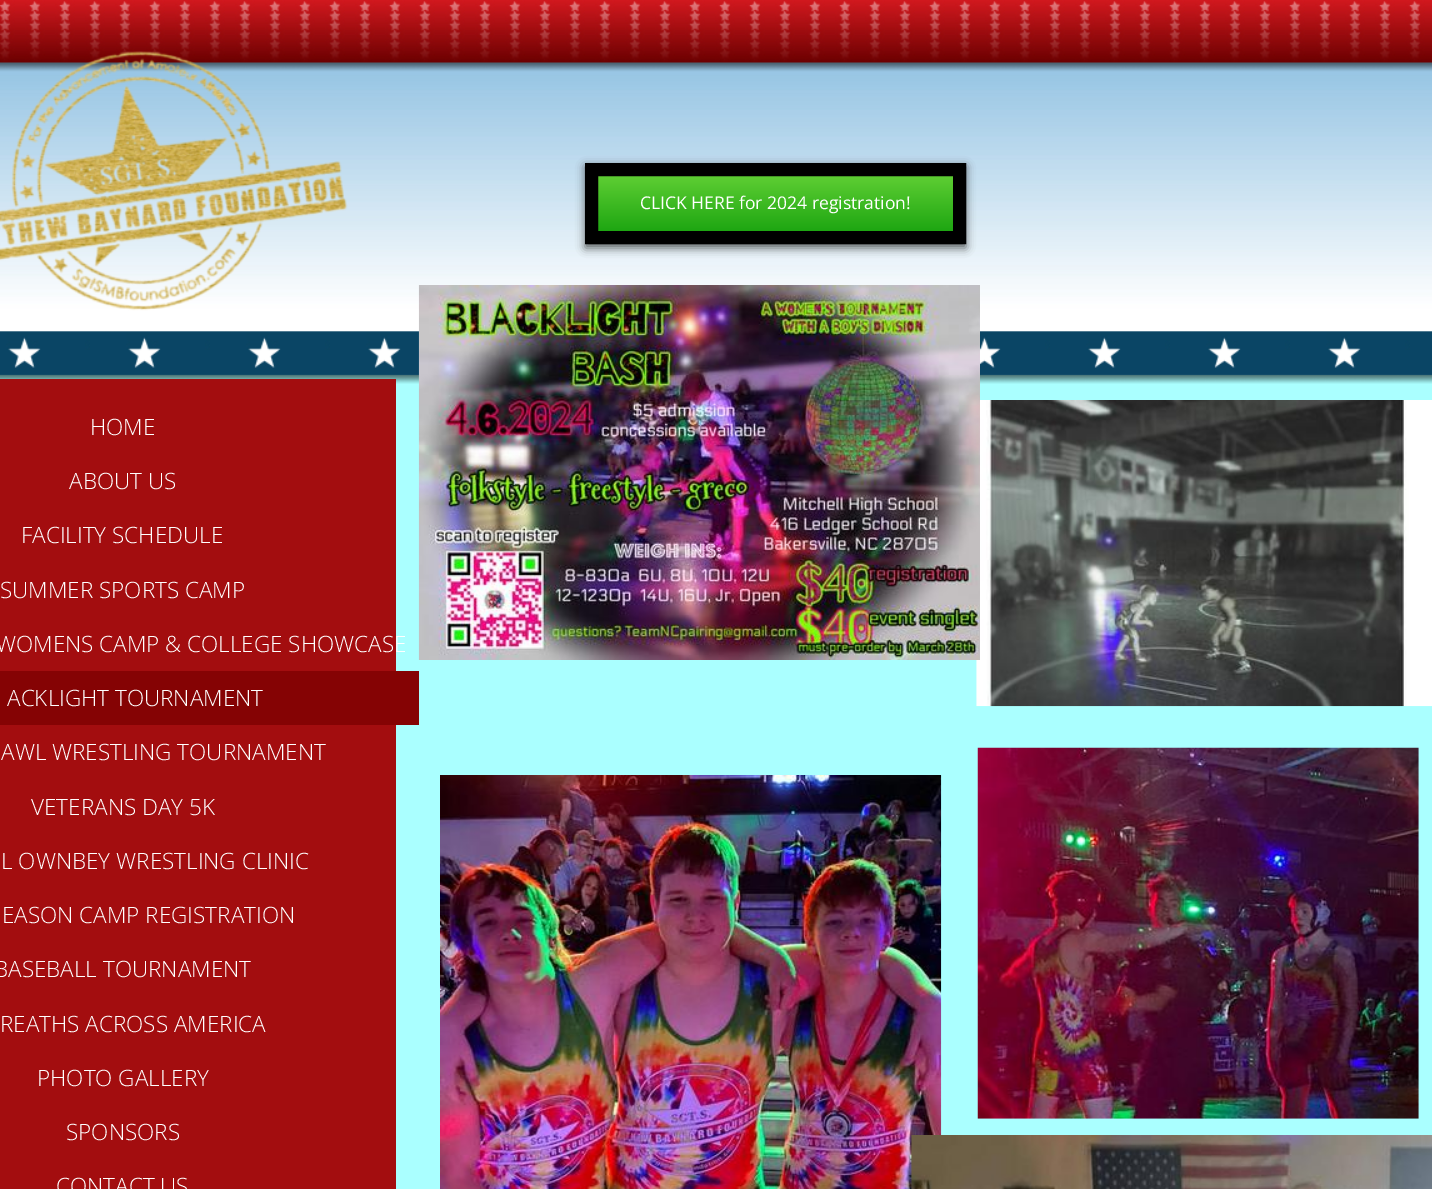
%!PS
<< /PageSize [1432 1189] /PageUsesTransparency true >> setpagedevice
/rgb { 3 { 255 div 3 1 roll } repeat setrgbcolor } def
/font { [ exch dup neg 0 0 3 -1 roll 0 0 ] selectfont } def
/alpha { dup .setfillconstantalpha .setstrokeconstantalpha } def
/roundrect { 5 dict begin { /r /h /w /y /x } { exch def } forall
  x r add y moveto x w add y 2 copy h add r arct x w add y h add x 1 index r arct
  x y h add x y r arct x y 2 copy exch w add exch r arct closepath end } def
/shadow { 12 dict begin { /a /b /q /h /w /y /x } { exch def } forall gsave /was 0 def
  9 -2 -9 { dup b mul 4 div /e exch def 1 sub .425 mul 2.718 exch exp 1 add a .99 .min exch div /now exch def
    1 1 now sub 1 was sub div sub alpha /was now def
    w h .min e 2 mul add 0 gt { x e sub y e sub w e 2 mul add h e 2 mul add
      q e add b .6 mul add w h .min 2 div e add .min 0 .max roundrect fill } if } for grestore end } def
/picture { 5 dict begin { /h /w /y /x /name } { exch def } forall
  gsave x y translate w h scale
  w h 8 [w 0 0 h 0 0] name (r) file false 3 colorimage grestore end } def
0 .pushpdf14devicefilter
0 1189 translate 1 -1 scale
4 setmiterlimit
170 255 255 rgb
0 0 1432 1189 rectfill
(img/1.rgb) 0 0 1432 384 picture
(img/2.rgb) 0 51 348 260 picture
50 50 50 rgb
585 166 381 82 0 4.5 0.75 shadow
gsave 598 176 moveto 953 176 lineto 953 231 lineto 598 231 lineto closepath clip newpath
<< /ShadingType 2 /ColorSpace /DeviceRGB /Coords [776 175 776 231] /Extend [true true] /Function << /FunctionType 2 /Domain [0 1] /C0 [0.373 0.812 0.204] /C1 [0.118 0.651 0.071] /N 1 >> >> shfill grestore
0 0 0 rgb
13 setlinewidth
591.5 169.5 368 68 rectstroke
163 13 15 rgb
0 379 396 810 rectfill
(img/4.rgb) 976 400 456 307 picture
(img/3.rgb) 418 285 562 375 picture
133 3 4 rgb
0 671 419 54 rectfill
(img/5.rgb) 440 775 502 414 picture
(img/6.rgb) 977 747 442 372 picture
(img/7.rgb) 911 1135 521 54 picture
/OpenSans-Regular 17.5 font
255 255 255 rgb
640 209 moveto (CLICK HERE for 2024 registration!) show
/OpenSans-Light 22.5 font
[
  [(HOME) 90 435]
  [(ABOUT US) 69 489]
  [(FACILITY SCHEDULE) 21 543]
  [(SUMMER SPORTS CAMP) 0 598]
  [(WOMENS CAMP & COLLEGE SHOWCASE) -4 652]
  [(ACKLIGHT TOURNAMENT) 7 706]
  [(AWL WRESTLING TOURNAMENT) 1 760]
  [(VETERANS DAY 5K) 31 815]
  [(L OWNBEY WRESTLING CLINIC) 1 869]
  [(EASON CAMP REGISTRATION) 2 923]
  [(BASEBALL TOURNAMENT) -6 977]
  [(REATHS ACROSS AMERICA) 0 1032]
  [(PHOTO GALLERY) 37 1086]
  [(SPONSORS) 66 1140]
  [(CONTACT US) 56 1194]
] { aload pop moveto show } forall
.poppdf14devicefilter showpage
